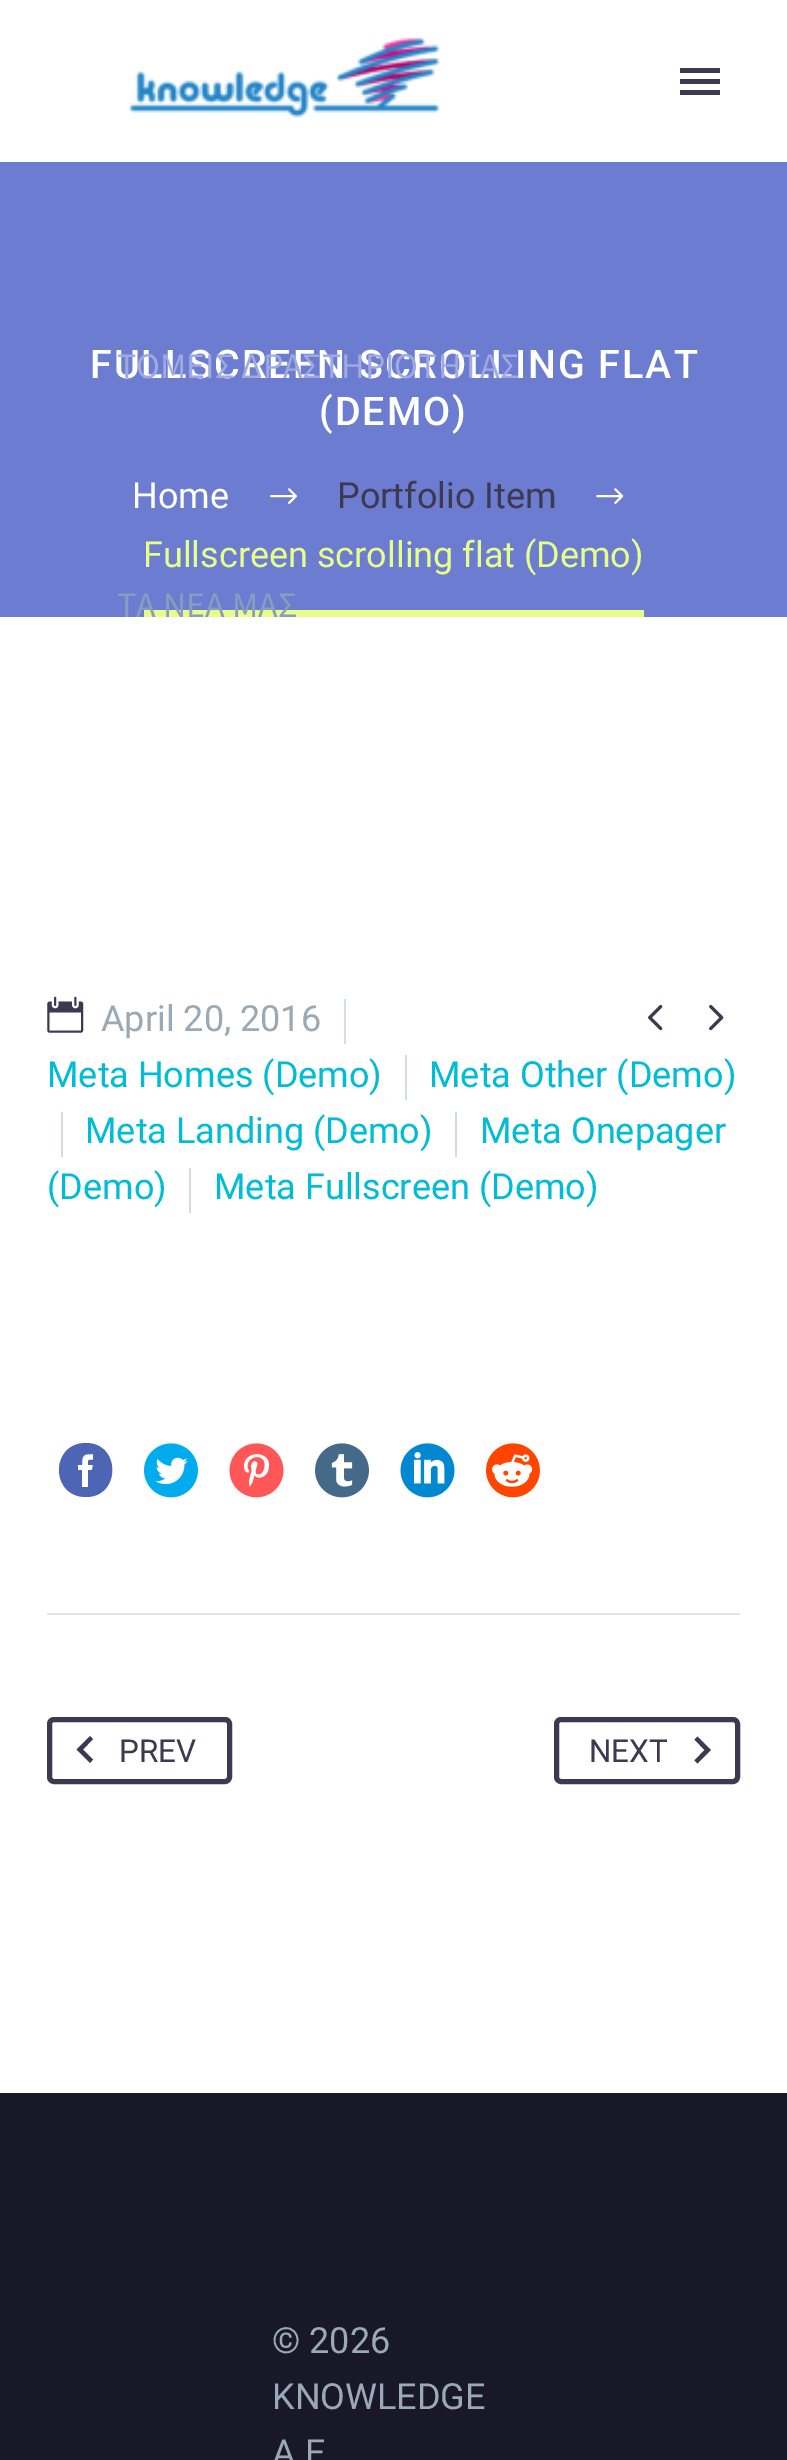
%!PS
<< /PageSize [787 2460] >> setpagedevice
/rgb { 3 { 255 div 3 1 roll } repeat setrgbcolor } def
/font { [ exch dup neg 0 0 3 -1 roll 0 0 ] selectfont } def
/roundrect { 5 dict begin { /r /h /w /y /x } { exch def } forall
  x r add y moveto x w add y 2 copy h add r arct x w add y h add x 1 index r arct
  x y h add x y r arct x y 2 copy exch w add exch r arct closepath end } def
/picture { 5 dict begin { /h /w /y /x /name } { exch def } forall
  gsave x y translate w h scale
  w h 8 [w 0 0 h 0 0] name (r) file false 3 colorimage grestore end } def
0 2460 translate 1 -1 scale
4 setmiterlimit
255 255 255 rgb
0 0 787 2460 rectfill
108 124 208 rgb
0 162 787 455 rectfill
(img/1.rgb) 270 488 27 16 picture
(img/2.rgb) 596 488 28 16 picture
231 255 137 rgb
144 610 500 7 rectfill
(img/3.rgb) 47 996 37 37 picture
[
  [344 999 2 45 212 222 225]
  [405 1055 2 45 212 222 225]
  [61 1112 2 45 212 222 225]
  [455 1112 2 45 212 222 225]
  [189 1168 2 45 212 222 225]
] { aload pop rgb rectfill } forall
(img/4.rgb) 648 1004 15 27 picture
(img/5.rgb) 709 1004 15 27 picture
78 100 181 rgb
86 1443 moveto 50 1443 50 1497 86 1497 curveto 121 1497 121 1443 86 1443 curveto closepath 92 1470 moveto 88 1470 lineto 88 1487 lineto 82 1487 lineto 82 1470 lineto 78 1470 lineto 78 1465 lineto 82 1465 lineto 82 1455 83 1454 93 1454 curveto 93 1460 lineto 88 1460 88 1459 88 1465 curveto 93 1465 lineto closepath fill
(img/6.rgb) 144 1443 54 55 picture
(img/7.rgb) 229 1443 55 55 picture
(img/8.rgb) 315 1443 54 55 picture
(img/9.rgb) 400 1443 55 55 picture
(img/10.rgb) 486 1443 54 55 picture
223 229 232 rgb
47 1613 693 2 rectfill
60 57 80 rgb
5 setlinewidth
49.5 1719.5 180 62 4.5 roundrect stroke
93 1759.5 moveto 83 1749.5 lineto 93 1739 lineto 90 1736 lineto 76.5 1749.5 lineto 90 1763 lineto closepath fill
556.5 1719.5 181 62 4.5 roundrect stroke
694.5 1760.5 moveto 704.5 1750 lineto 694.5 1739.5 lineto 697.5 1736.5 lineto 711 1750 lineto 697.5 1763.5 lineto closepath fill
(img/11.rgb) 128 37 312 81 picture
[
  [680 68 40 5 60 57 80]
  [680 79 40 5 60 57 80]
  [680 90 40 5 60 57 80]
  [0 2093 787 367 24 24 40]
] { aload pop rgb rectfill } forall
/Roboto-Medium 39.4 font
255 255 255 rgb
90 378 moveto 2 0 (FULLSCREEN SCROLLING FLAT) ashow
319 425 moveto 2 0 (\(DEMO\)) ashow
/Roboto-Regular 36 font
132 508 moveto (Home) show
60 57 80 rgb
337 508 moveto (Portfolio Item) show
231 255 137 rgb
143 567 moveto (Fullscreen scrolling flat \(Demo\)) show
153 169 181 rgb
101 1031 moveto (April 20, 2016) show
0 188 212 rgb
[
  [(Meta Homes \(Demo\)) 47 1087]
  [(Meta Other \(Demo\)) 429 1087]
  [(Meta Landing \(Demo\)) 85 1143]
  [(Meta Onepager) 480 1143]
  [(\(Demo\)) 47 1199]
  [(Meta Fullscreen \(Demo\)) 214 1199]
] { aload pop moveto show } forall
/Roboto-Regular 31.5 font
60 57 80 rgb
119 1762 moveto (PREV) show
589 1762 moveto (NEXT) show
/SourceSansPro-Regular 36 font
160 170 225 rgb
117 378 moveto (ΤΟΜΕΙΣ ΔΡΑΣΤΗΡΙΟΤΗΤΑΣ) show
139 157 190 rgb
117 617 moveto (ΤΑ ΝΕΑ ΜΑΣ) show
/Roboto-Regular 36 font
153 169 181 rgb
[
  [(© 2026) 272 2353]
  [(KNOWLEDGE) 272 2409]
  [(A.E) 272 2465]
] { aload pop moveto show } forall
showpage
